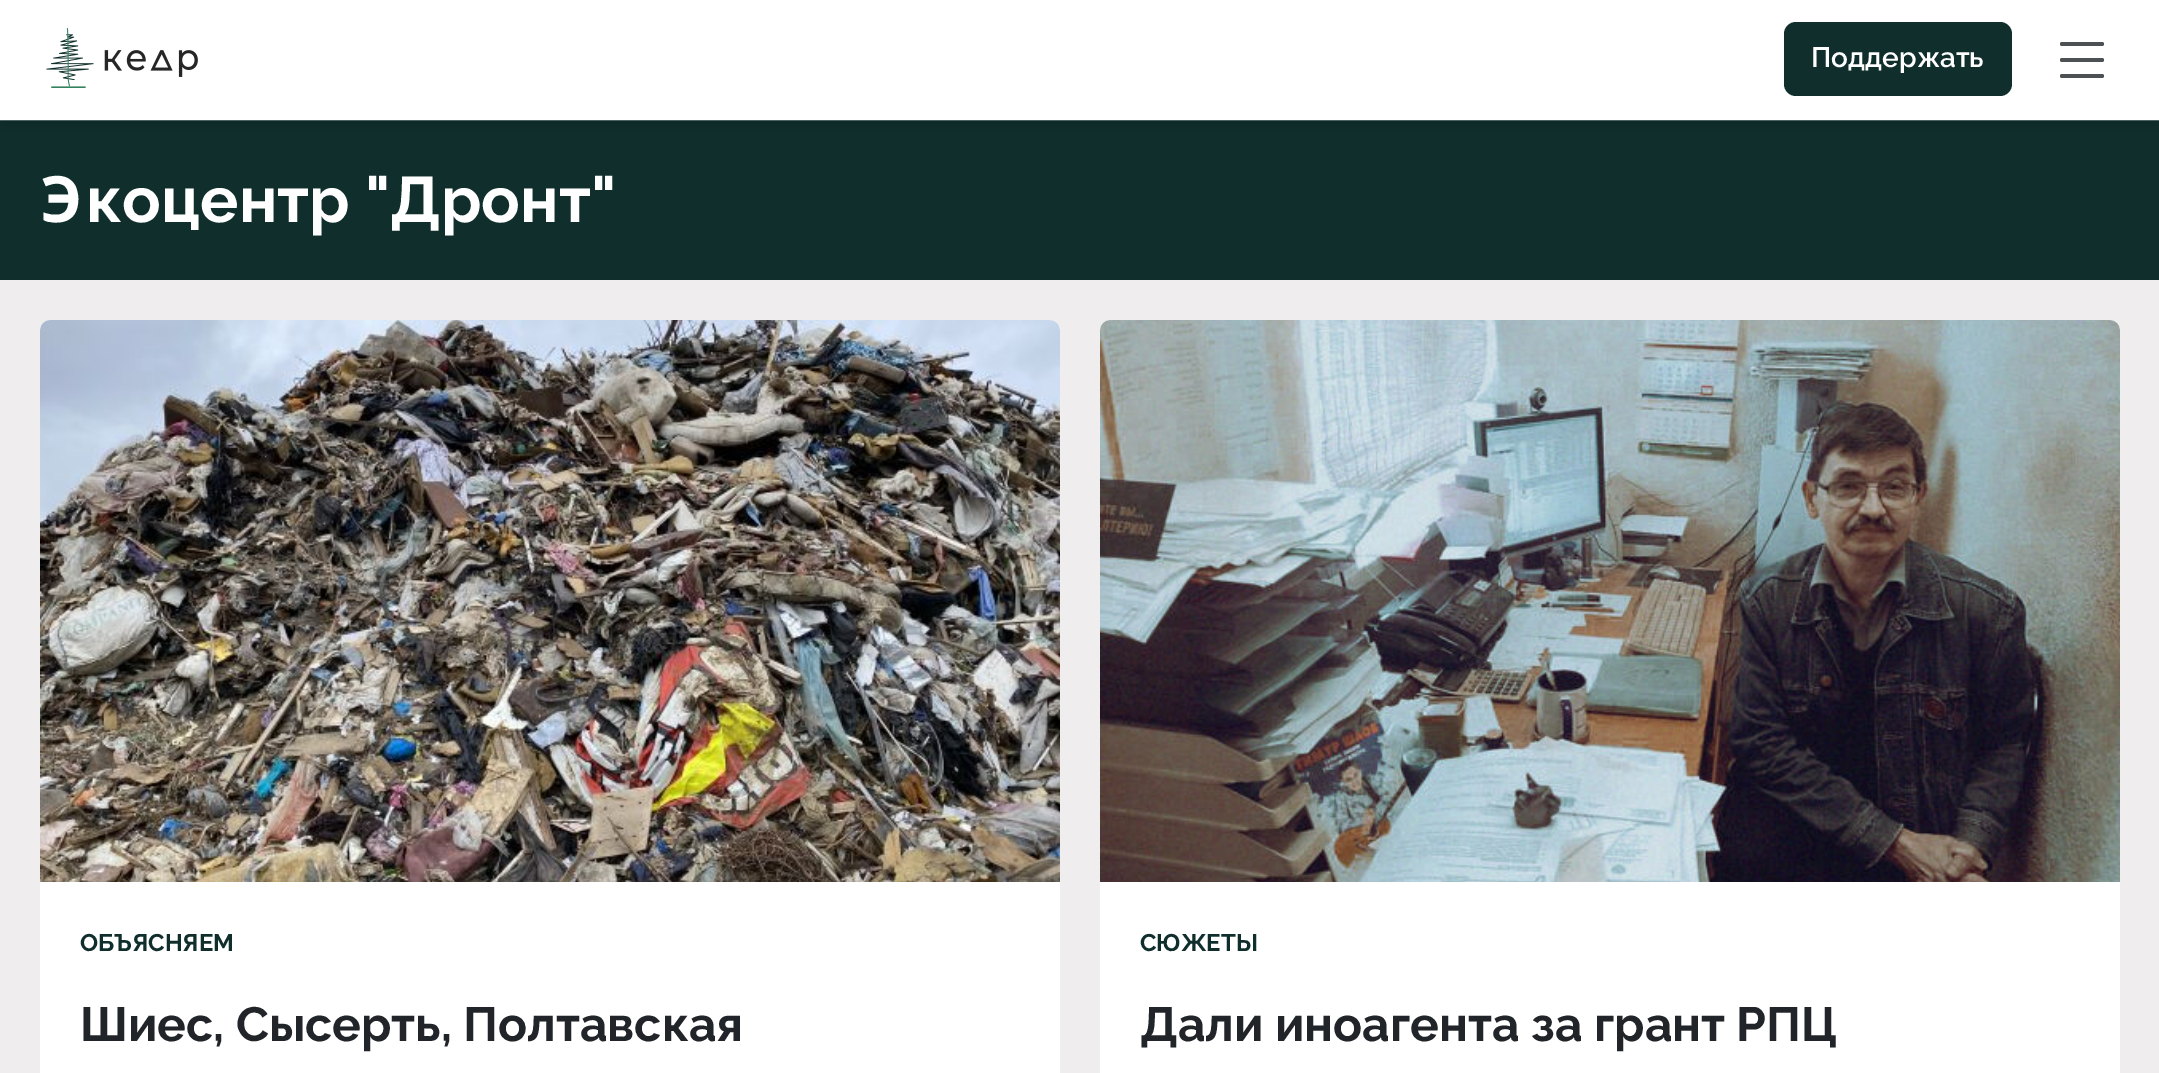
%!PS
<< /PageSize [2159 1073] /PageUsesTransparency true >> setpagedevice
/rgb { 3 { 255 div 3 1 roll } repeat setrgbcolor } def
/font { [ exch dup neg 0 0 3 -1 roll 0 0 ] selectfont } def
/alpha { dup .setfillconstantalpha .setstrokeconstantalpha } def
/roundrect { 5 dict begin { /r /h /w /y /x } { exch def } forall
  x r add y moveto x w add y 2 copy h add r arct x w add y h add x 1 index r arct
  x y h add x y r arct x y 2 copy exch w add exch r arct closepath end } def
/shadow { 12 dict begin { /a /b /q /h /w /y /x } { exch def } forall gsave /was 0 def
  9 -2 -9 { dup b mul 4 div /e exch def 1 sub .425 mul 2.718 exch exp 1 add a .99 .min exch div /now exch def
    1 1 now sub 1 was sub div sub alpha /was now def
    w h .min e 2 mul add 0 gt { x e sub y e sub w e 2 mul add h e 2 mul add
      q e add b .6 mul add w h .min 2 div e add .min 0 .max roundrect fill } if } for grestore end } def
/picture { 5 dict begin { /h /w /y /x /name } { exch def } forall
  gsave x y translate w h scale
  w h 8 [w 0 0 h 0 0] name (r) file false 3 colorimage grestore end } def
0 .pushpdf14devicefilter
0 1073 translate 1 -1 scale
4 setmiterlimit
239 237 237 rgb
0 0 2159 1073 rectfill
15 46 44 rgb
0 120 2159 160 rectfill
0 0 0 rgb
4 6 2152 112 0 8 0.25 shadow
255 255 255 rgb
-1 -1 moveto 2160 -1 lineto 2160 119 lineto -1 119 lineto closepath gsave fill grestore
2 setlinewidth
stroke
(img/1.rgb) 46 28 152 60 picture
15 46 44 rgb
1784 22 228 74 12 roundrect fill
77 81 84 rgb
2060 42 44 4 2 roundrect fill
2060 58 44 4 2 roundrect fill
2060 74 44 4 2 roundrect fill
255 255 255 rgb
40 320 1020 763 10 roundrect fill
(img/2.rgb) 40 320 1020 562 picture
1100 320 1020 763 10 roundrect fill
(img/3.rgb) 1100 320 1020 562 picture
/Raleway-SemiBold 28 font
1811 67 moveto (Поддержать) show
/NotoSans-Bold 64 font
40 222 moveto (Э) show
/Raleway-Bold 64 font
86 222 moveto (коцентр "Дронт") show
/Raleway-Bold 24 font
15 46 44 rgb
80 951 moveto (ОБЪЯСНЯЕМ) show
/Raleway-Bold 48 font
33 37 41 rgb
80 1041 moveto (Шиес, Сысерть, Полтавская) show
/Raleway-Bold 24 font
15 46 44 rgb
1140 951 moveto (СЮЖЕТЫ) show
/Raleway-Bold 48 font
33 37 41 rgb
1140 1041 moveto (Дали иноагента за грант РПЦ) show
.poppdf14devicefilter showpage
